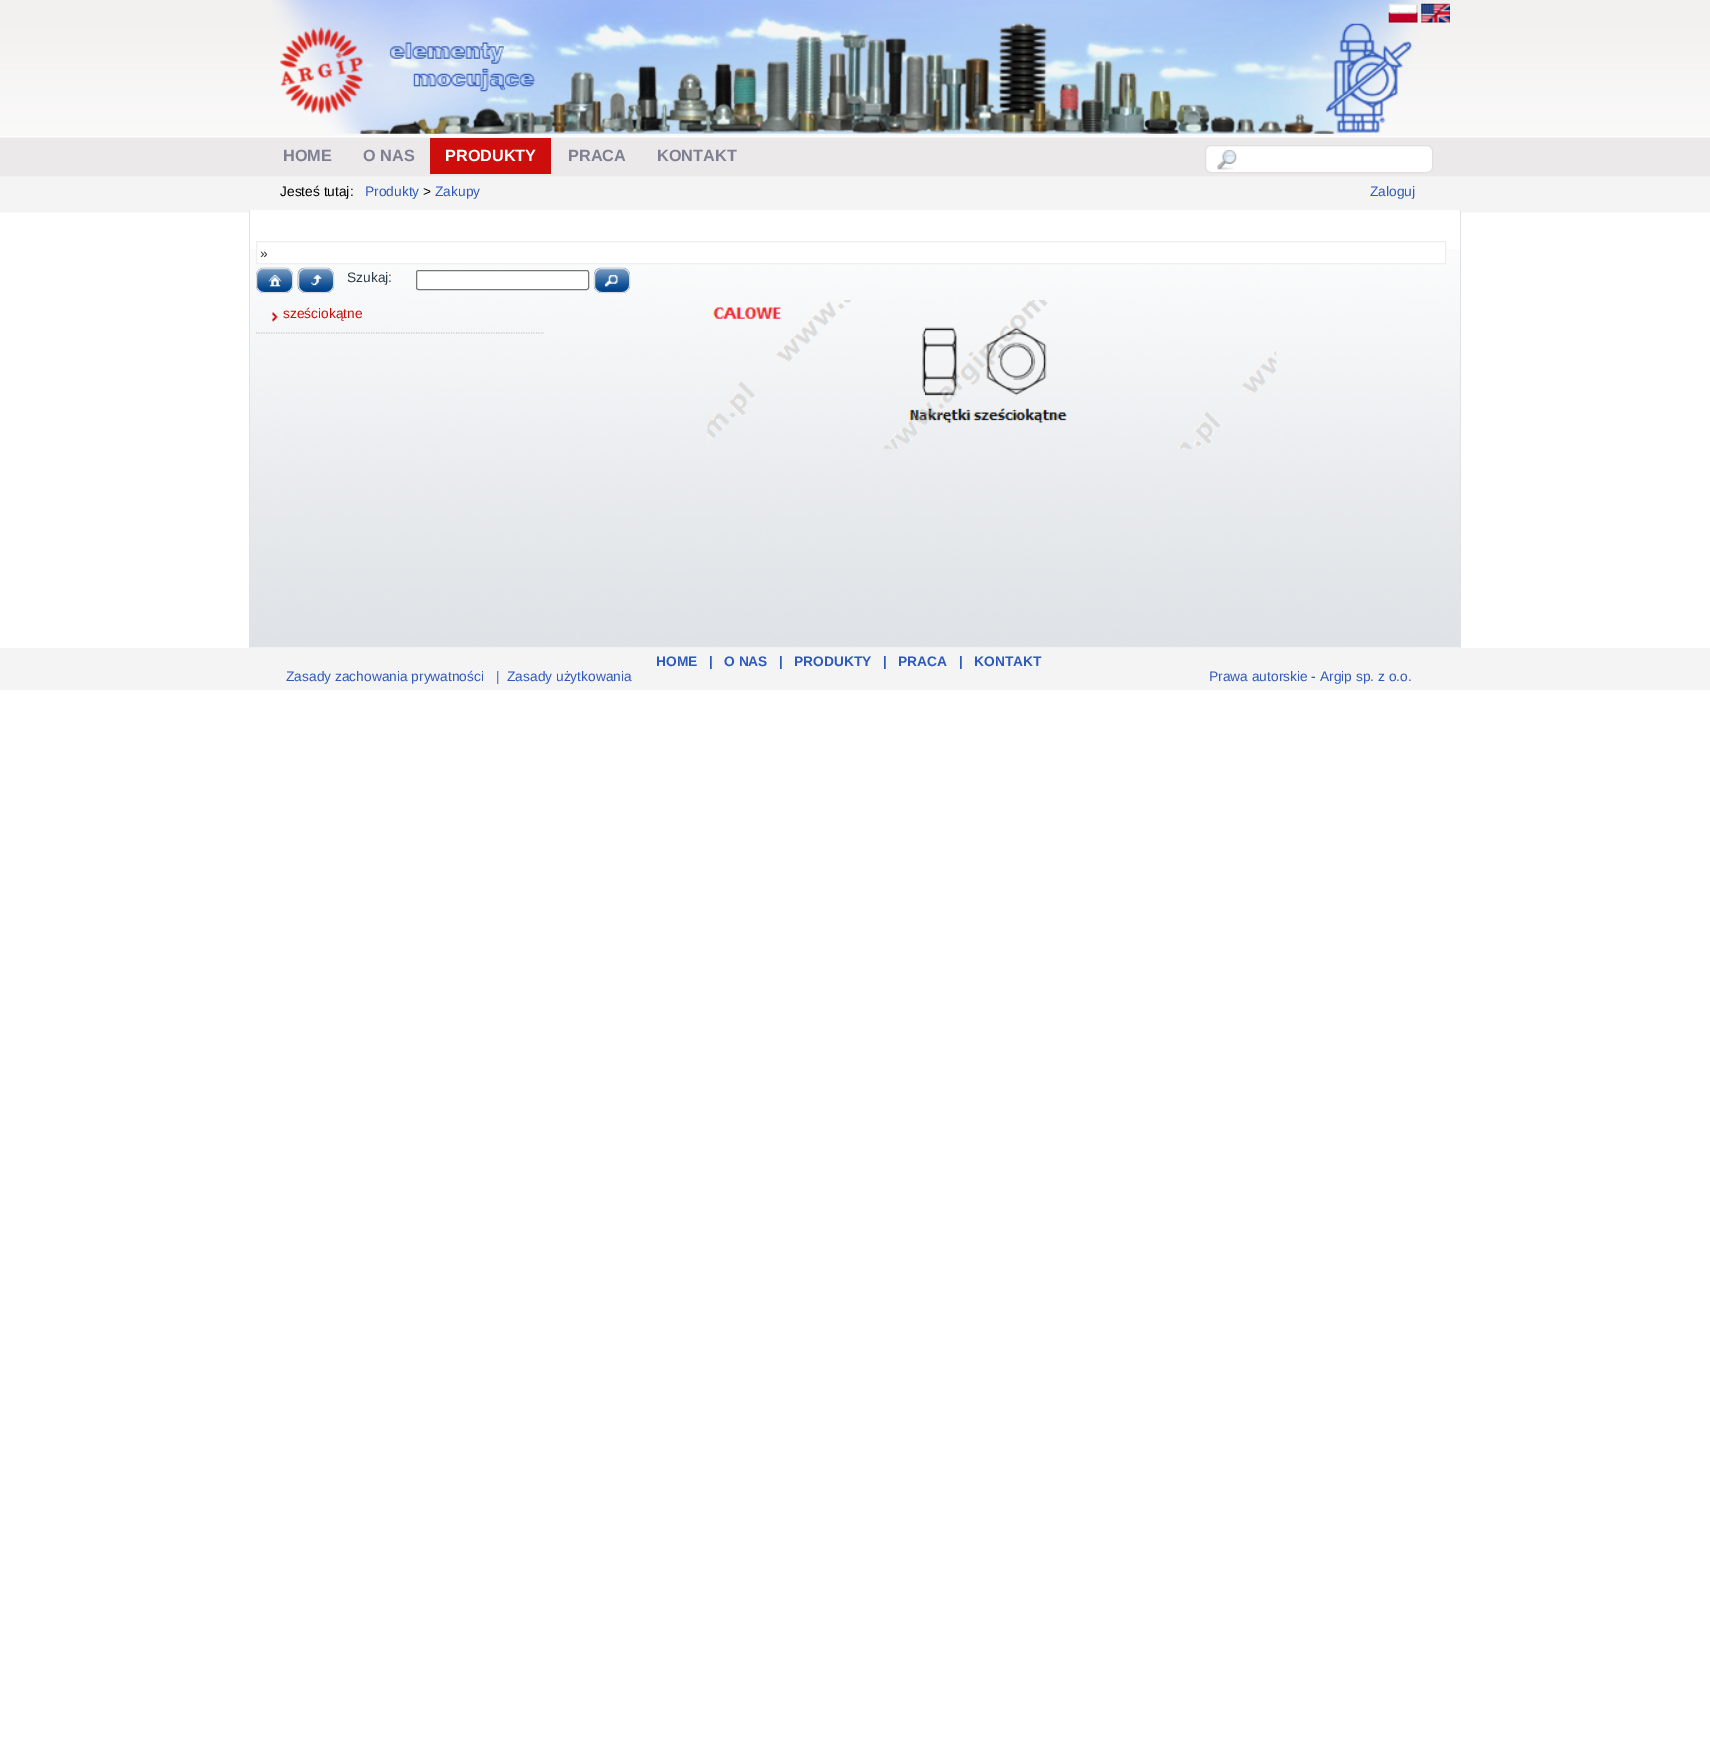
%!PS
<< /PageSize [1710 1760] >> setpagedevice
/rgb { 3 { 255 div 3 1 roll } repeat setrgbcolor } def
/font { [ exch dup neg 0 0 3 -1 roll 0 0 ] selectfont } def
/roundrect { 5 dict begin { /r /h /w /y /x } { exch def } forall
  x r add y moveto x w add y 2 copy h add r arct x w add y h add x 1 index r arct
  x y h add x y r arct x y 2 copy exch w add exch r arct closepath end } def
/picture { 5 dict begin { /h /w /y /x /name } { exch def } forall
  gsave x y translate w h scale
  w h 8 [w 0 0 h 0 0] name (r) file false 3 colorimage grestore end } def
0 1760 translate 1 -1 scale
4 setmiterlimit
255 255 255 rgb
0 0 1710 1760 rectfill
(img/1.rgb) 0 0 1710 213 picture
(img/2.rgb) 272 0 1155 134 picture
(img/3.rgb) 1388 3 30 20 picture
(img/4.rgb) 1421 3 29 20 picture
(img/5.rgb) 279 27 257 87 picture
206 13 13 rgb
430 138 121 36 rectfill
255 255 255 rgb
1205.5 145.5 227 27 5.5 roundrect gsave fill grestore
224 224 224 rgb
stroke
(img/6.rgb) 1217 150 20 20 picture
[
  [249 210 1 438 223 227 231]
  [1460 210 1 438 223 227 231]
  [250 210 1210 3 255 255 255]
] { aload pop rgb rectfill } forall
(img/7.rgb) 250 249 1210 399 picture
257 249 1188 14 rectfill
238 238 238 rgb
256.5 241.5 1189 22 rectstroke
(img/8.rgb) 256 267 37 26 picture
216 220 223 rgb
256.5 268.5 36 24 7.5 roundrect stroke
(img/9.rgb) 268 274 14 13 picture
(img/10.rgb) 297 267 37 26 picture
298.5 268.5 35 24 7.5 roundrect stroke
(img/11.rgb) 311 274 11 12 picture
255 255 255 rgb
416.5 270.5 172 19 2 roundrect gsave fill grestore
118 118 118 rgb
stroke
(img/12.rgb) 593 267 37 26 picture
216 220 223 rgb
594.5 268.5 35 24 7.5 roundrect stroke
(img/13.rgb) 604 274 14 13 picture
207 207 207 rgb
1.2 setlinewidth
[1.25 1.25] 0 setdash
256 333 moveto 544 333 lineto stroke
(img/14.rgb) 272 312 6 10 picture
(img/15.rgb) 707 300 570 149 picture
244 244 245 rgb
0 648 1710 42 rectfill
/LiberationSans-Bold 16.25 font
128 128 147 rgb
283 161 moveto (HOME) show
363 161 moveto (O NAS) show
255 255 255 rgb
445 161 moveto (PRODUKTY) show
128 128 147 rgb
568 161 moveto (PRACA) show
657 161 moveto (KONTAKT) show
/LiberationSans-Regular 13.75 font
0 0 0 rgb
280 196 moveto (Jesteś tutaj:) show
47 89 186 rgb
365 196 moveto (Produkty) show
0 0 0 rgb
423 196 moveto (>) show
47 89 186 rgb
435 196 moveto (Zakupy) show
1370 196 moveto (Zaloguj) show
51 51 51 rgb
260 258 moveto (») show
46 61 71 rgb
347 282 moveto (Szukaj:) show
206 13 13 rgb
283 318 moveto (sześciokątne) show
/LiberationSans-Bold 13.75 font
47 89 186 rgb
[
  [(HOME) 656 666]
  [(|) 709 666]
  [(O NAS) 724 666]
  [(|) 779 666]
  [(PRODUKTY) 794 666]
  [(|) 883 666]
  [(PRACA) 898 666]
  [(|) 959 666]
  [(KONTAKT) 974 666]
] { aload pop moveto show } forall
/LiberationSans-Regular 13.75 font
[
  [(Zasady zachowania prywatności) 286 681]
  [(|) 496 681]
  [(Zasady użytkowania) 507 681]
  [(Prawa autorskie - Argip sp. z o.o.) 1209 681]
] { aload pop moveto show } forall
showpage
